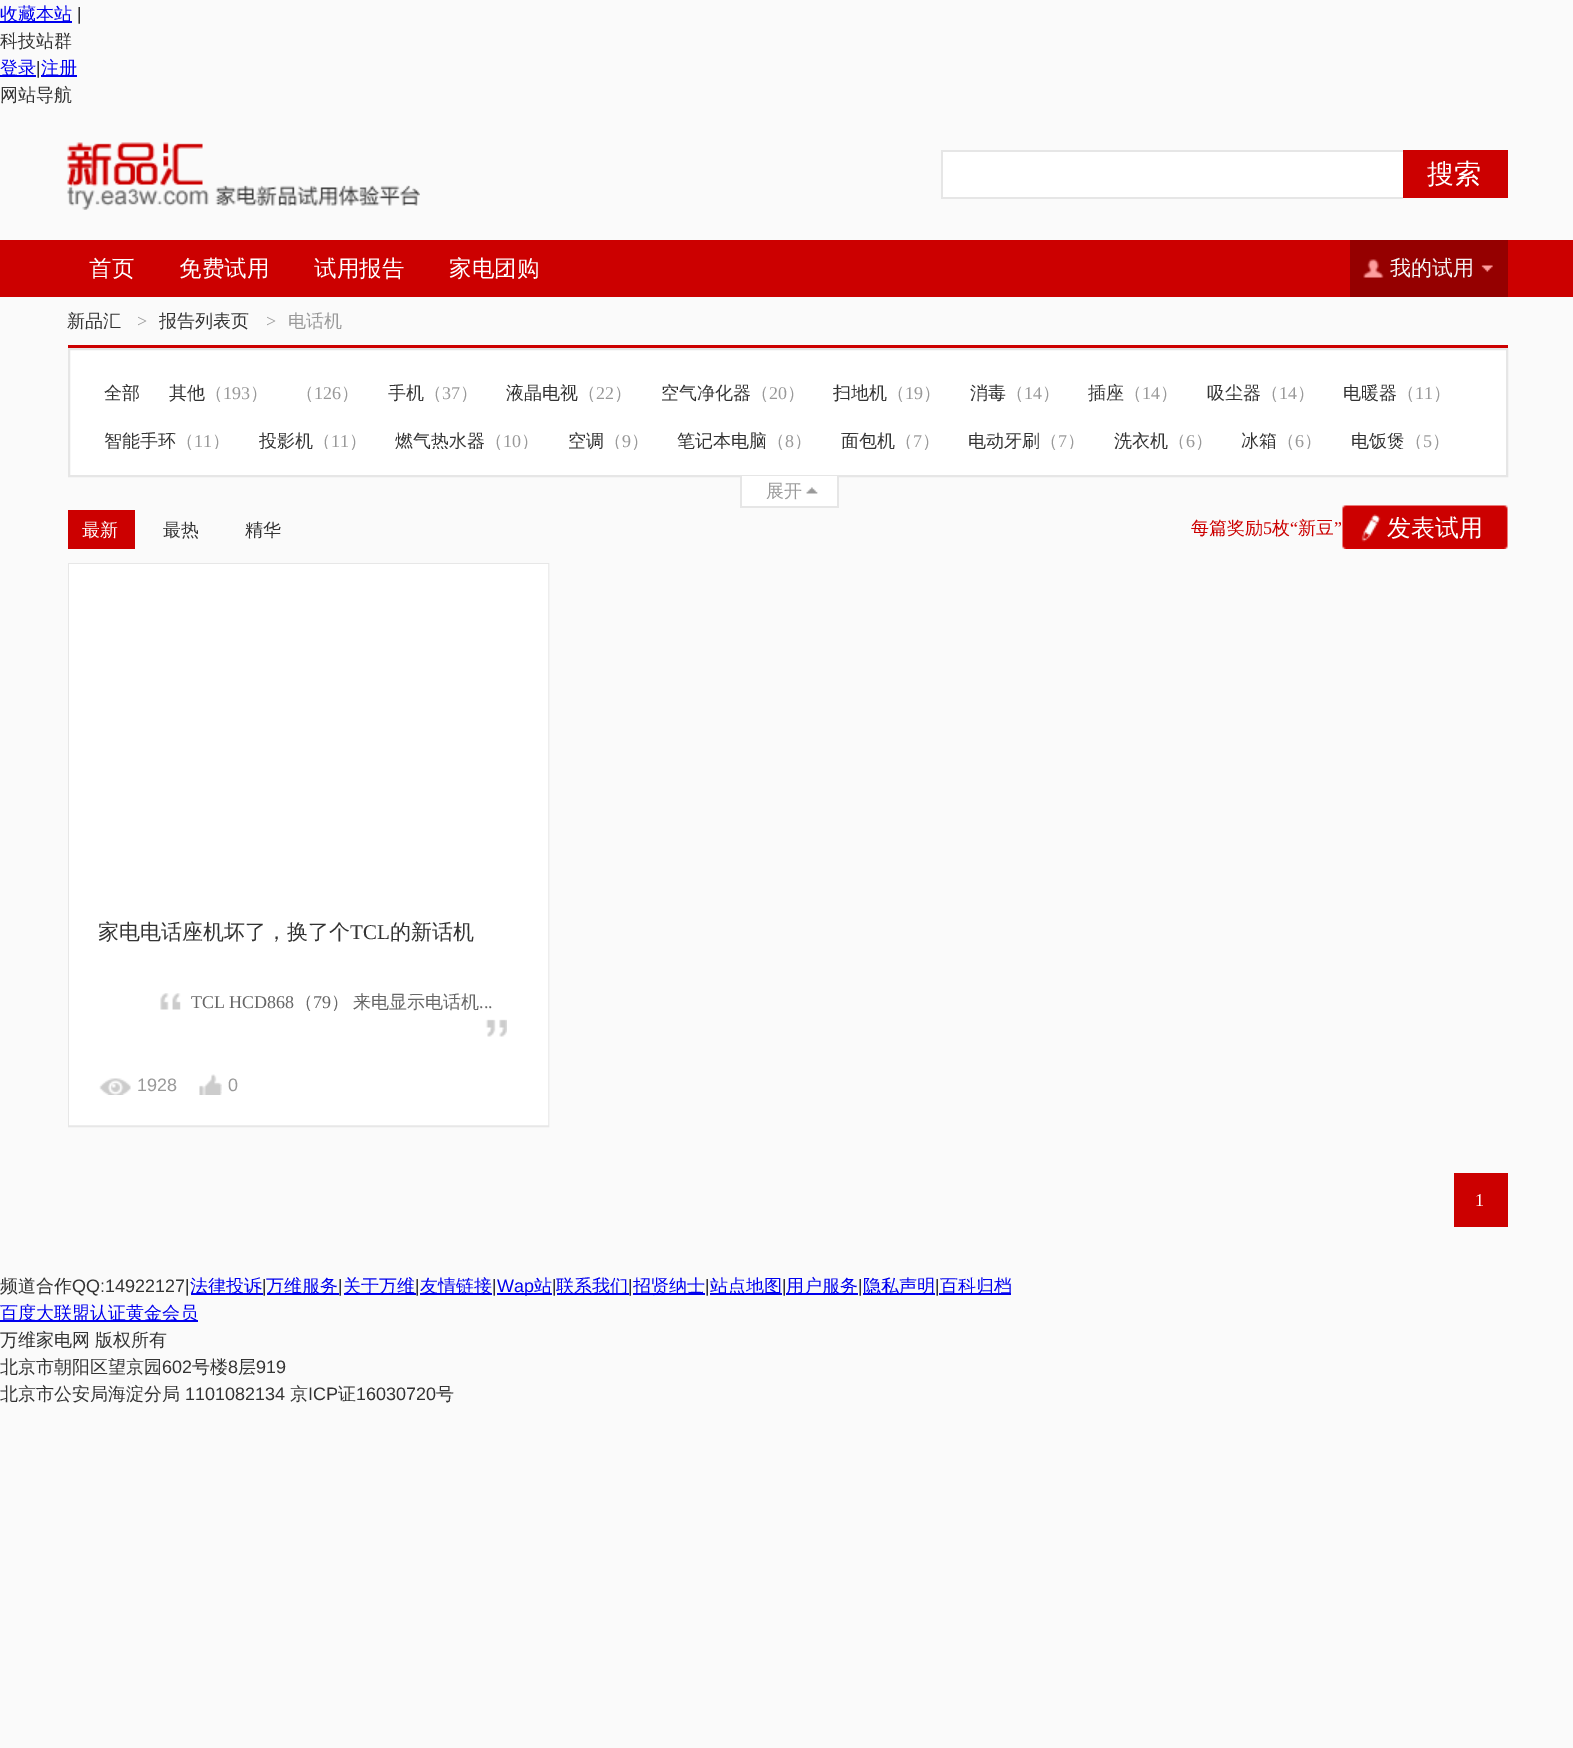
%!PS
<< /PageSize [1573 1748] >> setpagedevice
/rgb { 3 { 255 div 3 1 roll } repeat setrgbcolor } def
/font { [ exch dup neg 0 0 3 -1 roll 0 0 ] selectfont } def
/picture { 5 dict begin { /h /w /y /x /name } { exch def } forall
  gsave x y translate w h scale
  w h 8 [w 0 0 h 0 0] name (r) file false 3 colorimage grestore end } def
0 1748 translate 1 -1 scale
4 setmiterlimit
250 250 250 rgb
0 0 1573 1748 rectfill
[
  [0 21 72 2 0 0 238]
  [0 75 36 2 0 0 238]
  [41 75 36 2 0 0 238]
] { aload pop rgb rectfill } forall
(img/1.rgb) 67 142 353 68 picture
[
  [943 152 460 45 255 255 255]
  [941 150 462 2 230 230 230]
  [941 197 462 2 230 230 230]
  [941 150 2 48 230 230 230]
  [1403 150 105 48 204 0 0]
  [0 240 1573 57 204 0 0]
  [1350 240 158 57 149 0 0]
] { aload pop rgb rectfill } forall
(img/2.rgb) 1363 259 21 19 picture
(img/3.rgb) 1481 265 12 7 picture
204 0 0 rgb
68 345 1440 3 rectfill
255 255 255 rgb
69 349 moveto 1507 349 lineto 1507 476 lineto 69 476 lineto closepath gsave fill grestore
230 230 230 rgb
2 setlinewidth
stroke
255 255 255 rgb
742 476 95 30 rectfill
(img/4.rgb) 806 487 12 7 picture
[
  [837 476 2 31 230 230 230]
  [740 506 99 2 230 230 230]
  [740 476 2 31 230 230 230]
  [68 510 67 39 204 0 0]
] { aload pop rgb rectfill } forall
(img/5.rgb) 1342 505 166 44 picture
255 255 255 rgb
71 566 475 557 rectfill
231 231 231 rgb
69 564 479 562 rectstroke
255 255 255 rgb
70 565 477 559 rectstroke
(img/6.rgb) 160 993 347 44 picture
(img/7.rgb) 99 1078 32 17 picture
(img/8.rgb) 199 1074 23 21 picture
[
  [1454 1173 54 54 204 0 0]
  [191 1293 72 2 0 0 238]
  [267 1293 72 2 0 0 238]
  [344 1293 72 2 0 0 238]
  [420 1293 72 2 0 0 238]
  [497 1293 55 2 0 0 238]
  [557 1293 72 2 0 0 238]
  [633 1293 72 2 0 0 238]
  [710 1293 72 2 0 0 238]
  [786 1293 72 2 0 0 238]
  [863 1293 72 2 0 0 238]
  [939 1293 72 2 0 0 238]
  [0 1320 198 2 0 0 238]
] { aload pop rgb rectfill } forall
/WenQuanYiZenHei-Medium 18 font
0 20 moveto (收藏本站) show
/LiberationSans-Regular 18 font
51 51 51 rgb
77 20 moveto (|) show
/WenQuanYiZenHei-Medium 18 font
0 47 moveto (科技站群) show
0 0 238 rgb
0 74 moveto (登录) show
/LiberationSans-Regular 18 font
51 51 51 rgb
36 74 moveto (|) show
/WenQuanYiZenHei-Medium 18 font
0 0 238 rgb
41 74 moveto (注册) show
51 51 51 rgb
0 101 moveto (网站导航) show
/WenQuanYiZenHei-Medium 27 font
255 255 255 rgb
1427 183 moveto (搜索) show
/WenQuanYiZenHei-Medium 22.5 font
[
  [(首页) 89 276]
  [(免费试用) 179 276]
  [(试用报告) 314 276]
  [(家电团购) 449 276]
] { aload pop moveto show } forall
/WenQuanYiZenHei-Medium 21 font
246 246 246 rgb
1390 275 moveto (我的试用) show
/WenQuanYiZenHei-Medium 18 font
51 51 51 rgb
67 327 moveto (新品汇) show
/LiberationSerif-Regular 18 font
153 153 153 rgb
137 327 moveto (>) show
/WenQuanYiZenHei-Medium 18 font
51 51 51 rgb
159 327 moveto (报告列表页) show
/LiberationSerif-Regular 18 font
153 153 153 rgb
266 327 moveto (>) show
/WenQuanYiZenHei-Medium 18 font
288 327 moveto (电话机) show
51 51 51 rgb
104 399 moveto (全部) show
169 399 moveto (其他) show
153 153 153 rgb
205 399 moveto (（) show
/LiberationSerif-Regular 18 font
223 399 moveto (193) show
/WenQuanYiZenHei-Medium 18 font
250 399 moveto (）) show
296 399 moveto (（) show
/LiberationSerif-Regular 18 font
314 399 moveto (126) show
/WenQuanYiZenHei-Medium 18 font
341 399 moveto (）) show
51 51 51 rgb
388 399 moveto (手机) show
153 153 153 rgb
424 399 moveto (（) show
/LiberationSerif-Regular 18 font
442 399 moveto (37) show
/WenQuanYiZenHei-Medium 18 font
460 399 moveto (）) show
51 51 51 rgb
506 399 moveto (液晶电视) show
153 153 153 rgb
578 399 moveto (（) show
/LiberationSerif-Regular 18 font
596 399 moveto (22) show
/WenQuanYiZenHei-Medium 18 font
614 399 moveto (）) show
51 51 51 rgb
661 399 moveto (空气净化器) show
153 153 153 rgb
751 399 moveto (（) show
/LiberationSerif-Regular 18 font
769 399 moveto (20) show
/WenQuanYiZenHei-Medium 18 font
787 399 moveto (）) show
51 51 51 rgb
833 399 moveto (扫地机) show
153 153 153 rgb
887 399 moveto (（) show
/LiberationSerif-Regular 18 font
905 399 moveto (19) show
/WenQuanYiZenHei-Medium 18 font
923 399 moveto (）) show
51 51 51 rgb
970 399 moveto (消毒) show
153 153 153 rgb
1006 399 moveto (（) show
/LiberationSerif-Regular 18 font
1024 399 moveto (14) show
/WenQuanYiZenHei-Medium 18 font
1042 399 moveto (）) show
51 51 51 rgb
1088 399 moveto (插座) show
153 153 153 rgb
1124 399 moveto (（) show
/LiberationSerif-Regular 18 font
1142 399 moveto (14) show
/WenQuanYiZenHei-Medium 18 font
1160 399 moveto (）) show
51 51 51 rgb
1207 399 moveto (吸尘器) show
153 153 153 rgb
1261 399 moveto (（) show
/LiberationSerif-Regular 18 font
1279 399 moveto (14) show
/WenQuanYiZenHei-Medium 18 font
1297 399 moveto (）) show
51 51 51 rgb
1343 399 moveto (电暖器) show
153 153 153 rgb
1397 399 moveto (（) show
/LiberationSerif-Regular 18 font
1415 399 moveto (11) show
/WenQuanYiZenHei-Medium 18 font
1433 399 moveto (）) show
gsave
99 353 1386 96 rectclip
51 51 51 rgb
104 447 moveto (智能手环) show
grestore
176 447 moveto (（) show
/LiberationSerif-Regular 18 font
194 447 moveto (11) show
gsave
99 353 1386 96 rectclip
/WenQuanYiZenHei-Medium 18 font
212 447 moveto (）) show
51 51 51 rgb
259 447 moveto (投影机) show
153 153 153 rgb
313 447 moveto (（) show
grestore
331 447 moveto (11) show
/WenQuanYiZenHei-Medium 18 font
349 447 moveto (）) show
gsave
99 353 1386 96 rectclip
51 51 51 rgb
395 447 moveto (燃气热水器) show
grestore
485 447 moveto (（) show
/LiberationSerif-Regular 18 font
503 447 moveto (10) show
gsave
99 353 1386 96 rectclip
/WenQuanYiZenHei-Medium 18 font
521 447 moveto (）) show
grestore
/WenQuanYiZenHei-Medium 18 font
51 51 51 rgb
568 447 moveto (空调) show
gsave
99 353 1386 96 rectclip
153 153 153 rgb
604 447 moveto (（) show
grestore
/LiberationSerif-Regular 18 font
153 153 153 rgb
622 447 moveto (9) show
/WenQuanYiZenHei-Medium 18 font
631 447 moveto (）) show
gsave
99 353 1386 96 rectclip
51 51 51 rgb
677 447 moveto (笔记本电脑) show
grestore
767 447 moveto (（) show
/LiberationSerif-Regular 18 font
785 447 moveto (8) show
gsave
99 353 1386 96 rectclip
/WenQuanYiZenHei-Medium 18 font
794 447 moveto (）) show
51 51 51 rgb
841 447 moveto (面包机) show
153 153 153 rgb
895 447 moveto (（) show
grestore
913 447 moveto (7) show
/WenQuanYiZenHei-Medium 18 font
922 447 moveto (）) show
gsave
99 353 1386 96 rectclip
51 51 51 rgb
968 447 moveto (电动牙刷) show
grestore
1040 447 moveto (（) show
/LiberationSerif-Regular 18 font
1058 447 moveto (7) show
gsave
99 353 1386 96 rectclip
/WenQuanYiZenHei-Medium 18 font
1067 447 moveto (）) show
51 51 51 rgb
1114 447 moveto (洗衣机) show
153 153 153 rgb
1168 447 moveto (（) show
grestore
1186 447 moveto (6) show
/WenQuanYiZenHei-Medium 18 font
1195 447 moveto (）) show
gsave
99 353 1386 96 rectclip
51 51 51 rgb
1241 447 moveto (冰箱) show
grestore
1277 447 moveto (（) show
/LiberationSerif-Regular 18 font
1295 447 moveto (6) show
gsave
99 353 1386 96 rectclip
/WenQuanYiZenHei-Medium 18 font
1304 447 moveto (）) show
51 51 51 rgb
1351 447 moveto (电饭煲) show
153 153 153 rgb
1405 447 moveto (（) show
grestore
1423 447 moveto (5) show
/WenQuanYiZenHei-Medium 18 font
1432 447 moveto (）) show
766 497 moveto (展开) show
255 255 255 rgb
82 536 moveto (最新) show
51 51 51 rgb
163 536 moveto (最热) show
245 536 moveto (精华) show
204 0 0 rgb
1191 534 moveto (每篇奖励) show
/LiberationSerif-Regular 18 font
1263 534 moveto (5) show
/WenQuanYiZenHei-Medium 18 font
1272 534 moveto (枚) show
/LiberationSerif-Regular 18 font
1290 534 moveto (“) show
/WenQuanYiZenHei-Medium 18 font
1298 534 moveto (新豆) show
/LiberationSerif-Regular 18 font
1334 534 moveto (”) show
/WenQuanYiZenHei-Medium 24 font
255 255 255 rgb
1387 536 moveto (发表试用) show
/WenQuanYiZenHei-Medium 21 font
51 51 51 rgb
98 939 moveto (家电电话座机坏了，换了个) show
/LiberationSerif-Regular 21 font
350 939 moveto (TCL) show
/WenQuanYiZenHei-Medium 21 font
390 939 moveto (的新话机) show
/LiberationSerif-Regular 18 font
102 102 102 rgb
191 1008 moveto (TCL HCD868) show
/WenQuanYiZenHei-Medium 18 font
295 1008 moveto (（) show
/LiberationSerif-Regular 18 font
313 1008 moveto (79) show
/WenQuanYiZenHei-Medium 18 font
331 1008 moveto (）) show
353 1008 moveto (来电显示电话机) show
/LiberationSerif-Regular 18 font
479 1008 moveto (...) show
/LiberationSans-Regular 18 font
153 153 153 rgb
137 1091 moveto (1928) show
228 1091 moveto (0) show
/LiberationSerif-Regular 18 font
255 255 255 rgb
1475 1206 moveto (1) show
/WenQuanYiZenHei-Medium 18 font
51 51 51 rgb
0 1292 moveto (频道合作) show
/LiberationSans-Regular 18 font
72 1292 moveto (QQ:14922127|) show
/WenQuanYiZenHei-Medium 18 font
0 0 238 rgb
190 1292 moveto (法律投诉) show
/LiberationSans-Regular 18 font
51 51 51 rgb
262 1292 moveto (|) show
/WenQuanYiZenHei-Medium 18 font
0 0 238 rgb
266 1292 moveto (万维服务) show
/LiberationSans-Regular 18 font
51 51 51 rgb
338 1292 moveto (|) show
/WenQuanYiZenHei-Medium 18 font
0 0 238 rgb
343 1292 moveto (关于万维) show
/LiberationSans-Regular 18 font
51 51 51 rgb
415 1292 moveto (|) show
/WenQuanYiZenHei-Medium 18 font
0 0 238 rgb
420 1292 moveto (友情链接) show
/LiberationSans-Regular 18 font
51 51 51 rgb
492 1292 moveto (|) show
0 0 238 rgb
497 1292 moveto (Wap) show
/WenQuanYiZenHei-Medium 18 font
534 1292 moveto (站) show
/LiberationSans-Regular 18 font
51 51 51 rgb
552 1292 moveto (|) show
/WenQuanYiZenHei-Medium 18 font
0 0 238 rgb
556 1292 moveto (联系我们) show
/LiberationSans-Regular 18 font
51 51 51 rgb
628 1292 moveto (|) show
/WenQuanYiZenHei-Medium 18 font
0 0 238 rgb
633 1292 moveto (招贤纳士) show
/LiberationSans-Regular 18 font
51 51 51 rgb
705 1292 moveto (|) show
/WenQuanYiZenHei-Medium 18 font
0 0 238 rgb
710 1292 moveto (站点地图) show
/LiberationSans-Regular 18 font
51 51 51 rgb
782 1292 moveto (|) show
/WenQuanYiZenHei-Medium 18 font
0 0 238 rgb
786 1292 moveto (用户服务) show
/LiberationSans-Regular 18 font
51 51 51 rgb
858 1292 moveto (|) show
/WenQuanYiZenHei-Medium 18 font
0 0 238 rgb
863 1292 moveto (隐私声明) show
/LiberationSans-Regular 18 font
51 51 51 rgb
935 1292 moveto (|) show
/WenQuanYiZenHei-Medium 18 font
0 0 238 rgb
940 1292 moveto (百科归档) show
0 1319 moveto (百度大联盟认证黄金会员) show
51 51 51 rgb
0 1346 moveto (万维家电网 版权所有) show
0 1373 moveto (北京市朝阳区望京园) show
/LiberationSans-Regular 18 font
162 1373 moveto (602) show
/WenQuanYiZenHei-Medium 18 font
192 1373 moveto (号楼) show
/LiberationSans-Regular 18 font
228 1373 moveto (8) show
/WenQuanYiZenHei-Medium 18 font
238 1373 moveto (层) show
/LiberationSans-Regular 18 font
256 1373 moveto (919) show
/WenQuanYiZenHei-Medium 18 font
0 1400 moveto (北京市公安局海淀分局) show
/LiberationSans-Regular 18 font
185 1400 moveto (1101082134) show
/WenQuanYiZenHei-Medium 18 font
290 1400 moveto (京) show
/LiberationSans-Regular 18 font
308 1400 moveto (ICP) show
/WenQuanYiZenHei-Medium 18 font
338 1400 moveto (证) show
/LiberationSans-Regular 18 font
356 1400 moveto (16030720) show
/WenQuanYiZenHei-Medium 18 font
436 1400 moveto (号) show
showpage
